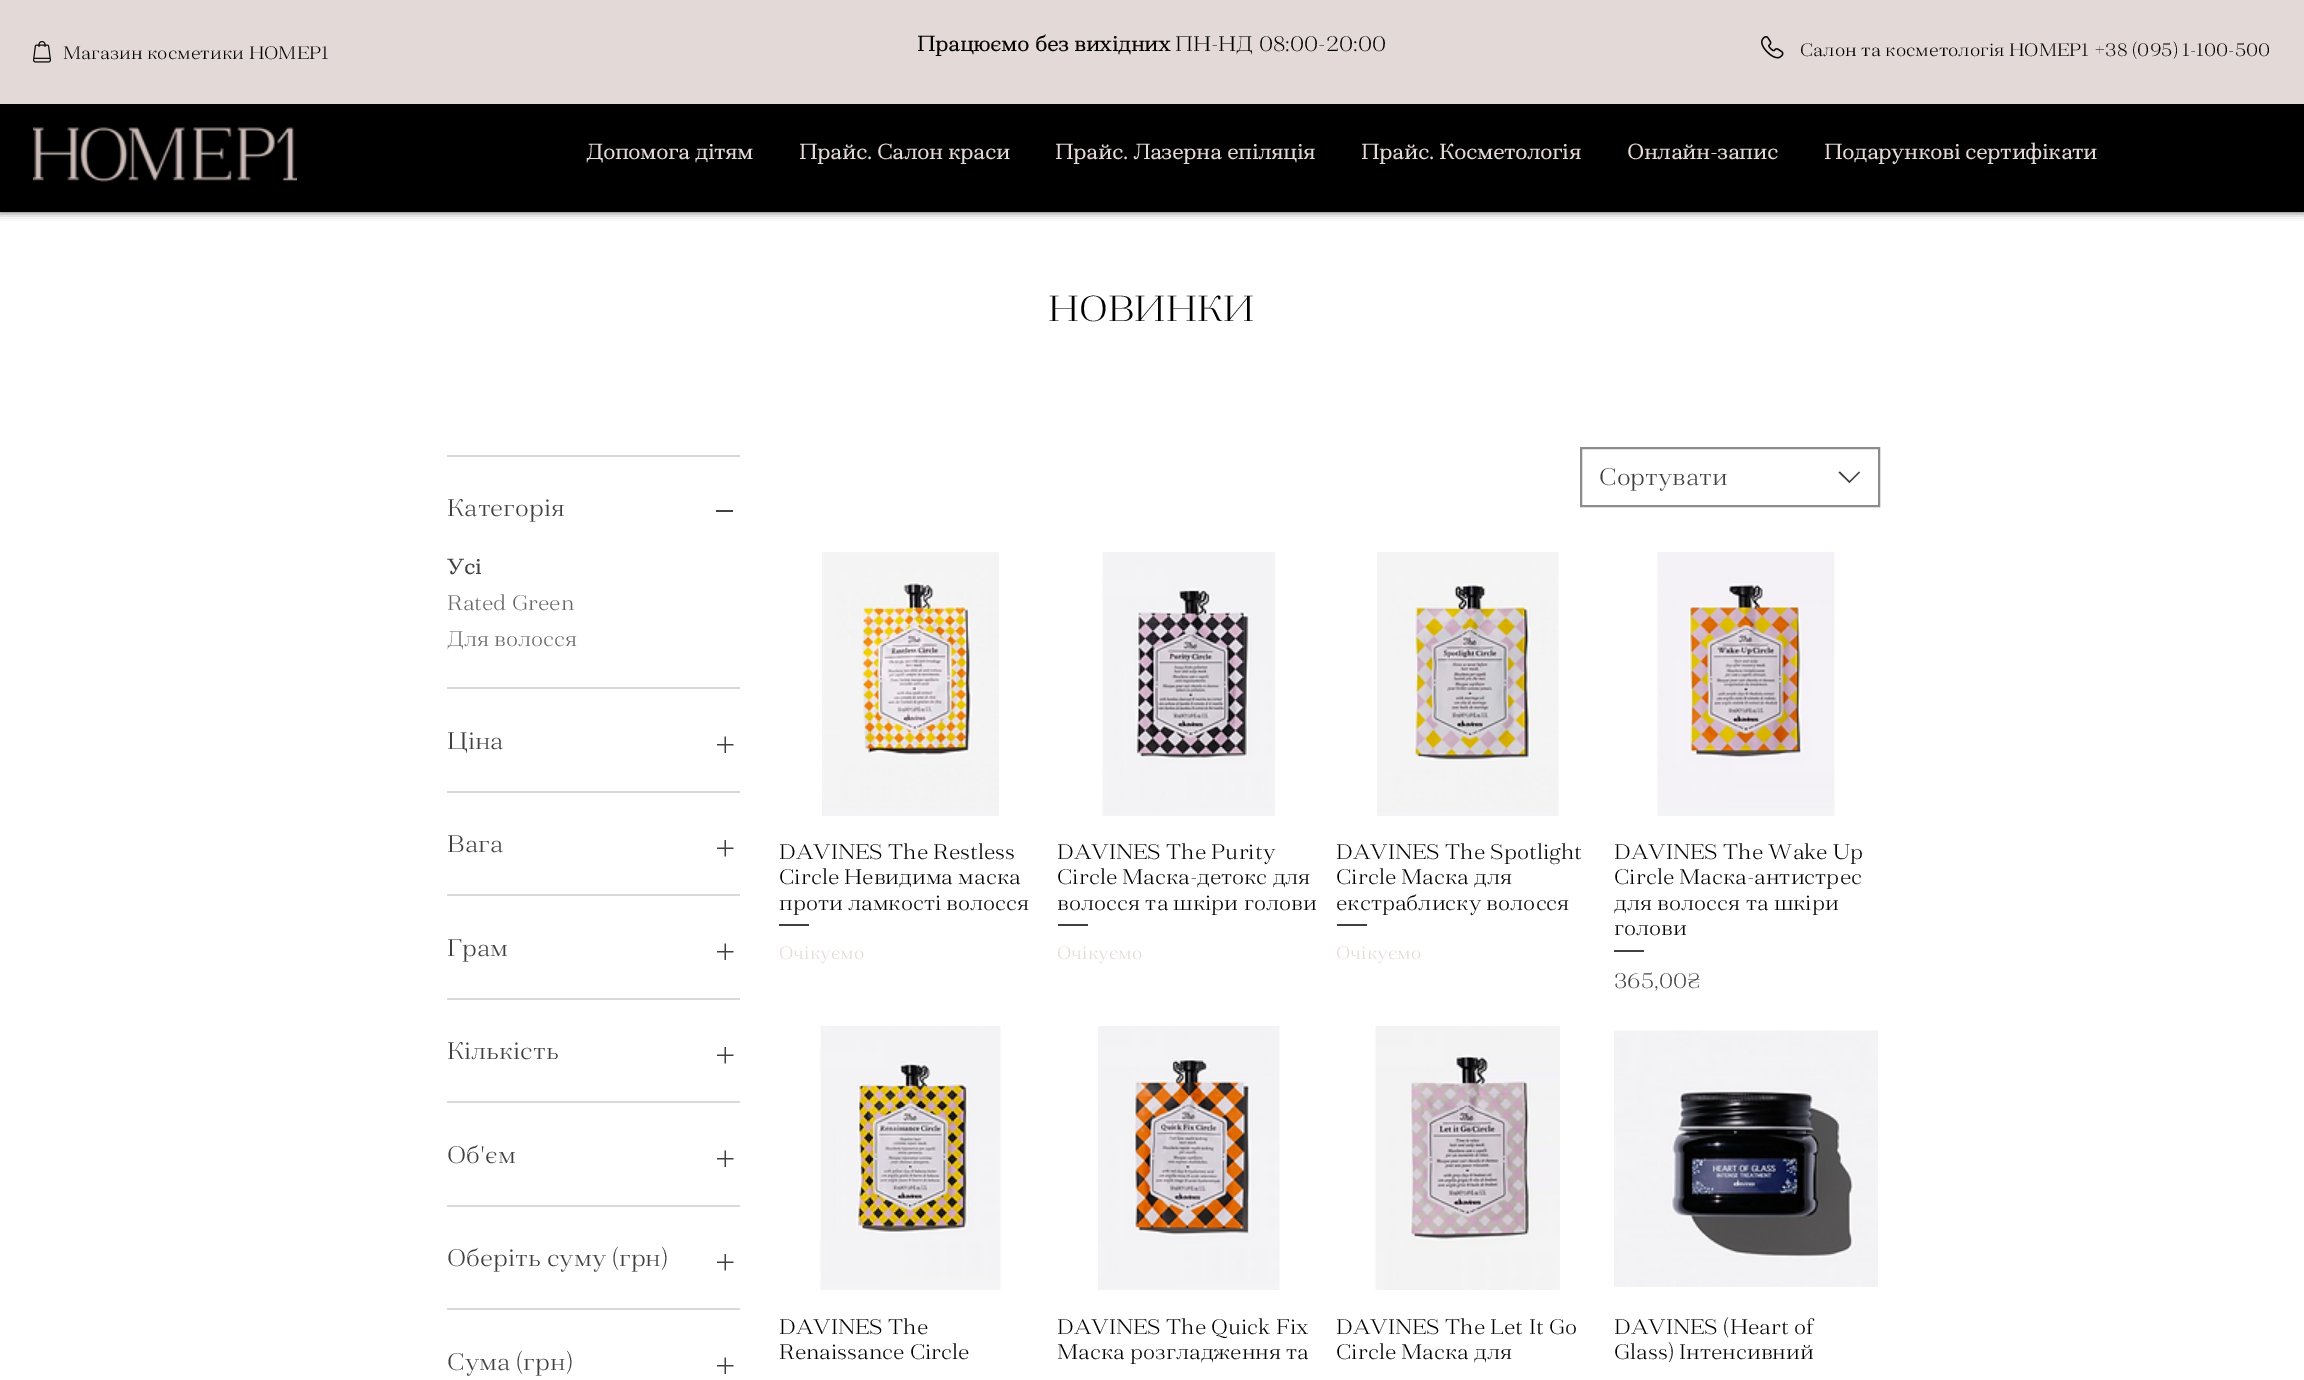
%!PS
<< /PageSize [2304 1380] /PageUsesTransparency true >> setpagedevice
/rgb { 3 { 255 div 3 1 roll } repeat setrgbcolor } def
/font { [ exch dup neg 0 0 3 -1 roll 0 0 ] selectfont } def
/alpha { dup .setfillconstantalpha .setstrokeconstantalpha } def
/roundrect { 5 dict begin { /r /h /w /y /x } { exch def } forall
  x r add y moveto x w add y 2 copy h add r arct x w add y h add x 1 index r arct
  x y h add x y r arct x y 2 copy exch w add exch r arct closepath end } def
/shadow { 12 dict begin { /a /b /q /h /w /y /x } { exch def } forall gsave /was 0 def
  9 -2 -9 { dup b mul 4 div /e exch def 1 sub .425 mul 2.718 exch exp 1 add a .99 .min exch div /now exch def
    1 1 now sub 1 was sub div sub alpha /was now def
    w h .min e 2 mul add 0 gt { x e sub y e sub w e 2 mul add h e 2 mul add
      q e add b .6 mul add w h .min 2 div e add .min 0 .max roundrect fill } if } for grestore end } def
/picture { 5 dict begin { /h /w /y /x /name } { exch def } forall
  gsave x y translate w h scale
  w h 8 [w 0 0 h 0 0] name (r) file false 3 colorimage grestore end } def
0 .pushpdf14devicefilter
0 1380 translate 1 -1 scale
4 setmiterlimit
255 255 255 rgb
0 0 2304 1380 rectfill
0 0 0 rgb
0 0 2304 212 0 4 0.7 shadow
0 203 2304 9 rectfill
227 217 215 rgb
0 0 2304 104 rectfill
(img/1.rgb) 33 41 18 22 picture
(img/2.rgb) 1761 36 23 23 picture
0 0 0 rgb
0 104 2304 99 rectfill
(img/3.rgb) 33 127 264 55 picture
[
  [447 455 293 2 217 217 217]
  [447 687 293 2 217 217 217]
  [716 510 17 2 64 64 64]
  [447 791 293 2 217 217 217]
] { aload pop rgb rectfill } forall
(img/4.rgb) 717 736 17 17 picture
447 894 293 2 rectfill
(img/5.rgb) 717 840 17 17 picture
447 998 293 2 rectfill
(img/4.rgb) 717 943 17 17 picture
447 1101 293 2 rectfill
(img/5.rgb) 717 1047 17 17 picture
447 1205 293 2 rectfill
(img/4.rgb) 717 1150 17 17 picture
447 1308 293 2 rectfill
(img/5.rgb) 717 1254 17 17 picture
(img/4.rgb) 717 1357 17 17 picture
140 140 140 rgb
2 setlinewidth
1581 448 298 58 rectstroke
64 64 64 rgb
1859 471.5 moveto 1860 472.5 lineto 1849.5 483 lineto 1838.5 472.5 lineto 1840 471.5 lineto 1849.5 481 lineto closepath eofill
(img/6.rgb) 822 552 177 264 picture
779 924 30 2 rectfill
(img/7.rgb) 1102 552 173 264 picture
1058 924 30 2 rectfill
(img/8.rgb) 1377 552 182 264 picture
1337 924 30 2 rectfill
(img/9.rgb) 1657 552 178 264 picture
1614 950 30 2 rectfill
(img/10.rgb) 820 1026 181 264 picture
(img/11.rgb) 1098 1026 182 264 picture
(img/12.rgb) 1375 1026 185 264 picture
(img/13.rgb) 1614 1030 264 257 picture
/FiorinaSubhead-Light 18 font
0 0 0 rgb
63 59 moveto (Магазин косметики НОМЕР1) show
/FiorinaSubhead-Bold 21 font
917 51 moveto (Працюємо без вихідних) show
/FiorinaSubhead-Light 21 font
1175 51 moveto (ПН-НД 08:00-20:00) show
/FiorinaSubhead-Light 18 font
1800 56 moveto (Салон та косметологія НОМЕР1 +38 \(095\) 1-100-500) show
/FiorinaSubhead-Bold 21 font
227 217 215 rgb
[
  [(Допомога дітям) 586 159]
  [(Прайс. Салон краси) 799 159]
  [(Прайс. Лазерна епіляція) 1055 159]
  [(Прайс. Косметологія) 1361 159]
  [(Онлайн-запис) 1627 159]
  [(Подарункові сертифікати) 1824 159]
] { aload pop moveto show } forall
/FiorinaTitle-Light 36 font
0 0 0 rgb
1048 321 moveto (НОВИНКИ) show
/FiorinaSubhead-Light 24 font
64 64 64 rgb
447 516 moveto (Категорія) show
/FiorinaSubhead-Bold 21 font
447 574 moveto (Усі) show
/FiorinaSubhead-Light 21 font
102 102 102 rgb
447 610 moveto (Rated Green) show
447 646 moveto (Для волосся) show
/FiorinaSubhead-Light 24 font
64 64 64 rgb
[
  [(Ціна) 447 749]
  [(Вага) 447 852]
  [(Грам) 447 956]
  [(Кількість) 447 1059]
  [(Об'єм) 447 1163]
  [(Оберіть суму \(грн\)) 447 1266]
  [(Сума \(грн\)) 447 1370]
  [(Сортувати) 1599 485]
] { aload pop moveto show } forall
/FiorinaSubhead-Light 21 font
0 0 0 rgb
[
  [(DAVINES The Restless) 779 859]
  [(Circle Невидима маска) 779 884]
  [(проти ламкості волосся) 779 910]
] { aload pop moveto show } forall
/FiorinaSubhead-Light 18 font
227 217 215 rgb
779 959 moveto (Очікуємо) show
/FiorinaSubhead-Light 21 font
0 0 0 rgb
[
  [(DAVINES The Purity) 1057 859]
  [(Circle Маска-детокс для) 1057 884]
  [(волосся та шкіри голови) 1057 910]
] { aload pop moveto show } forall
/FiorinaSubhead-Light 18 font
227 217 215 rgb
1057 959 moveto (Очікуємо) show
/FiorinaSubhead-Light 21 font
0 0 0 rgb
[
  [(DAVINES The Spotlight) 1336 859]
  [(Circle Маска для) 1336 884]
  [(екстраблиску волосся) 1336 910]
] { aload pop moveto show } forall
/FiorinaSubhead-Light 18 font
227 217 215 rgb
1336 959 moveto (Очікуємо) show
/FiorinaSubhead-Light 21 font
0 0 0 rgb
[
  [(DAVINES The Wake Up) 1614 859]
  [(Circle Маска-антистрес) 1614 884]
  [(для волосся та шкіри) 1614 910]
  [(голови) 1614 935]
] { aload pop moveto show } forall
64 64 64 rgb
1614 988 moveto (365,00₴) show
0 0 0 rgb
[
  [(DAVINES The) 779 1334]
  [(Renaissance Circle) 779 1359]
  [(DAVINES The Quick Fix) 1057 1334]
  [(Маска розгладження та) 1057 1359]
  [(DAVINES The Let It Go) 1336 1334]
  [(Circle Маска для) 1336 1359]
  [(DAVINES \(Heart of) 1614 1334]
  [(Glass\) Інтенсивний) 1614 1359]
] { aload pop moveto show } forall
.poppdf14devicefilter showpage
